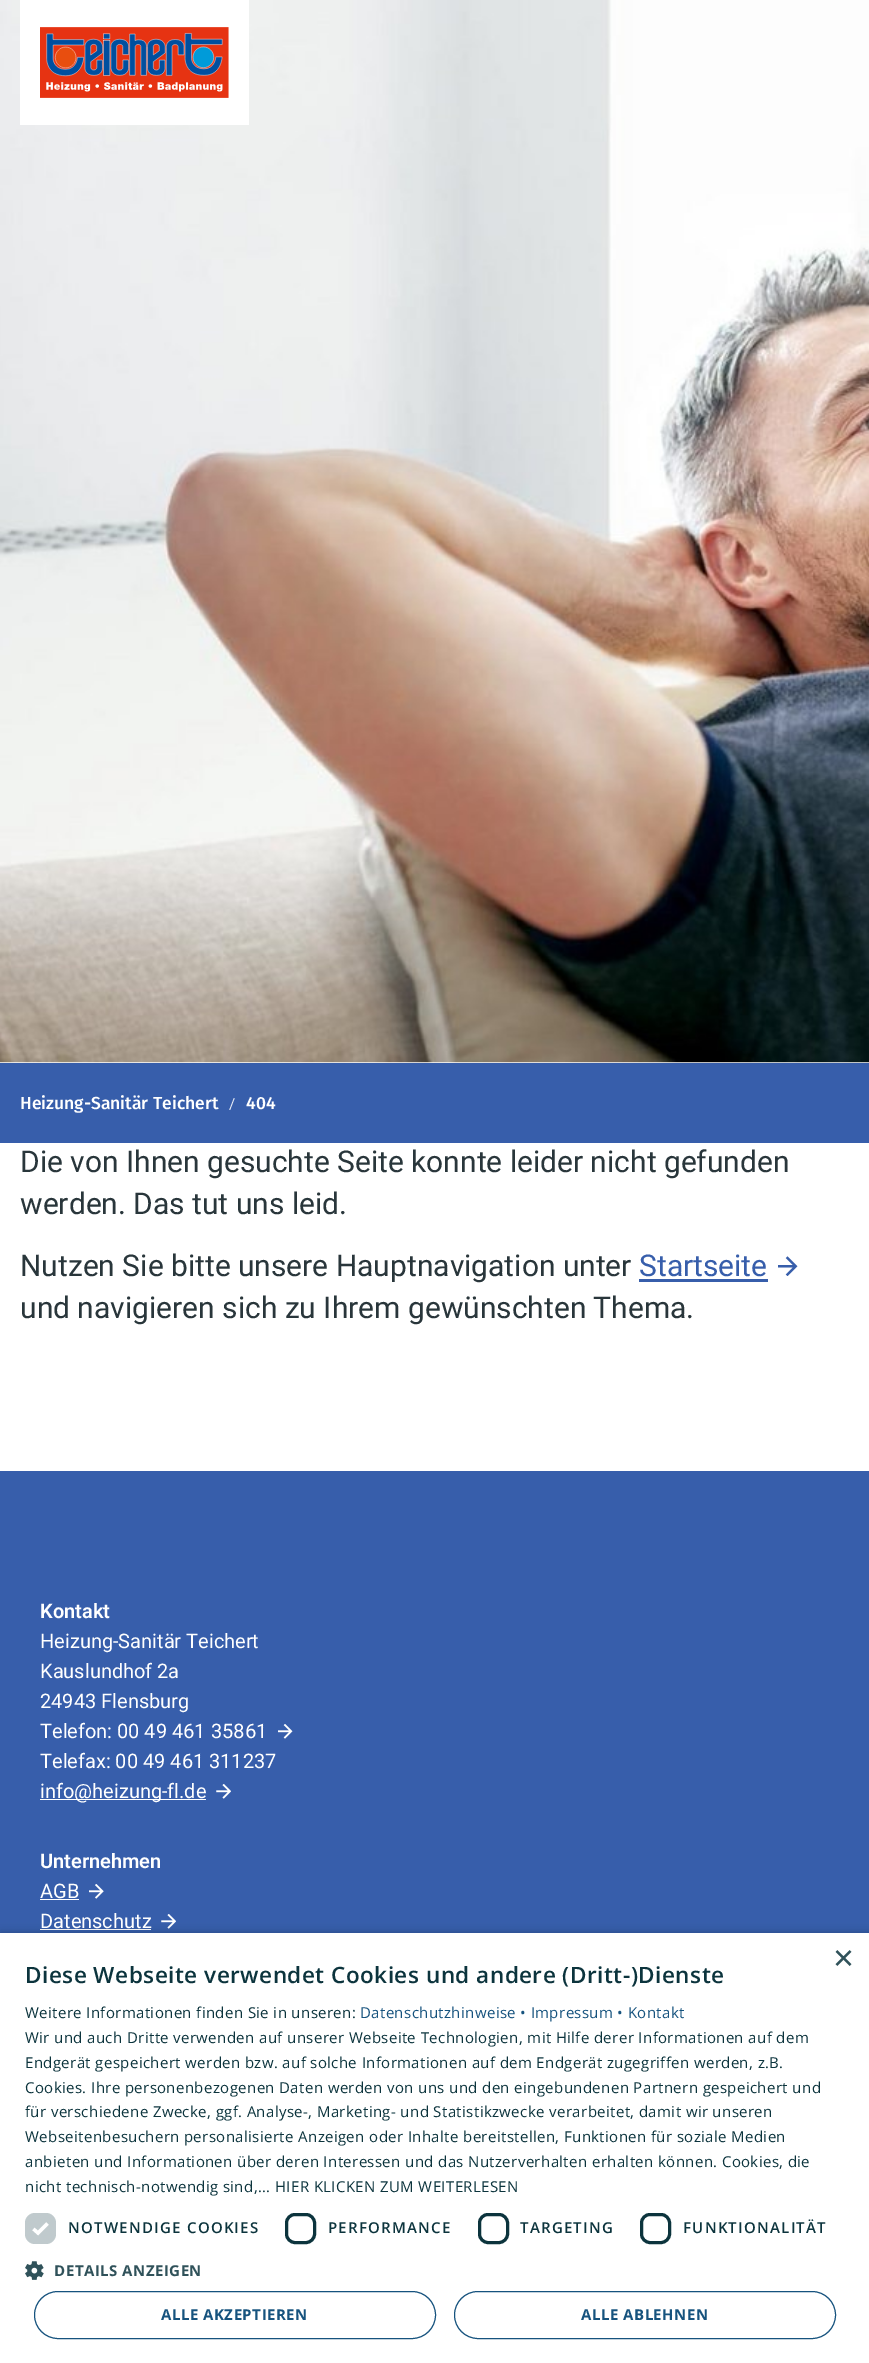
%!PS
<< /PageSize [869 2363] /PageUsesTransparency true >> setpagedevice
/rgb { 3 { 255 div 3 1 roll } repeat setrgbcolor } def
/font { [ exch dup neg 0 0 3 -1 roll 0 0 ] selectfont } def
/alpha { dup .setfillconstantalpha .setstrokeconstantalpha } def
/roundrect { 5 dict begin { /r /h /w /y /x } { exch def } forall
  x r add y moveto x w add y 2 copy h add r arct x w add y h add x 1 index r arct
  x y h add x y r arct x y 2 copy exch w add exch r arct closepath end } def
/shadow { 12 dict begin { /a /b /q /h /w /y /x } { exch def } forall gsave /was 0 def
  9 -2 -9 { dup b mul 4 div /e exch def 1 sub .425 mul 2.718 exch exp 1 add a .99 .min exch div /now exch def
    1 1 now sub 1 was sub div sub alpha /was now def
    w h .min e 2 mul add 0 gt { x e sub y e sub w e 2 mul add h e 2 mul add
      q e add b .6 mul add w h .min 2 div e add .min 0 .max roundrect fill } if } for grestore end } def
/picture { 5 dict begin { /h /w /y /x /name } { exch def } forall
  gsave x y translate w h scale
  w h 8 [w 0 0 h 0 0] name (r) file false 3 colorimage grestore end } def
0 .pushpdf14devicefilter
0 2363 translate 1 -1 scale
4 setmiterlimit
255 255 255 rgb
0 0 869 2363 rectfill
(img/2.rgb) 0 0 869 1063 picture
20 0 229 125 rectfill
(img/1.rgb) 40 27 189 71 picture
55 94 171 rgb
0 1063 869 80 rectfill
639 1279 129 3 rectfill
(img/3.rgb) 778 1256 20 20 picture
0 1471 869 462 rectfill
(img/4.rgb) 278 1724 15 15 picture
255 255 255 rgb
40 1799 166 1 rectfill
(img/5.rgb) 216 1784 15 15 picture
40 1899 39 1 rectfill
(img/6.rgb) 89 1884 15 15 picture
40 1929 111 1 rectfill
(img/5.rgb) 161 1914 15 15 picture
0 0 0 rgb
1 1935 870 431 0 5 0.35 shadow
255 255 255 rgb
0 1933 869 430 rectfill
192 202 205 rgb
25 2213 31 31 10 roundrect fill
255 255 255 rgb
3.3 setlinewidth
33.5 2229 moveto 38 2233 lineto 47.5 2223.5 lineto stroke
12 52 61 rgb
3 setlinewidth
286.5 2214.5 28 28 8.5 roundrect stroke
479.5 2214.5 28 28 8.5 roundrect stroke
641.5 2214.5 28 28 8.5 roundrect stroke
(img/7.rgb) 25 2261 19 19 picture
22 83 126 rgb
1 setlinewidth
34.5 2291.5 401 47 23.5 roundrect stroke
454.5 2291.5 381 47 23.5 roundrect stroke
/FiraSans-Medium 17.5 font
255 255 255 rgb
20 1109 moveto (Heizung-Sanitär Teichert) show
/Roboto-Regular 15 font
230 235 245 rgb
229 1109 moveto (/) show
/FiraSans-Medium 17.5 font
255 255 255 rgb
246 1109 moveto (404) show
/Roboto-Regular 30 font
41 54 59 rgb
[
  [(Die von Ihnen gesuchte Seite konnte leider nicht gefunden) 20 1172]
  [(werden. Das tut uns leid.) 20 1214]
  [(Nutzen Sie bitte unsere Hauptnavigation unter) 20 1276]
] { aload pop moveto show } forall
55 94 171 rgb
639 1276 moveto (Startseite) show
41 54 59 rgb
20 1318 moveto (und navigieren sich zu Ihrem gewünschten Thema.) show
/Roboto-SemiBold 20 font
255 255 255 rgb
40 1618 moveto (Kontakt) show
/Roboto-Regular 20 font
[
  [(Heizung-Sanitär Teichert) 40 1648]
  [(Kauslundhof 2a) 40 1678]
  [(24943 Flensburg) 40 1708]
  [(Telefon:) 40 1738]
] { aload pop moveto show } forall
/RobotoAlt-Regular 20 font
117 1738 moveto (00 49 461 35861) show
/Roboto-Regular 20 font
40 1768 moveto (Telefax: 00 49 461 311237) show
40 1798 moveto (info@heizung-fl.de) show
/Roboto-SemiBold 20 font
40 1868 moveto (Unternehmen) show
/Roboto-Regular 20 font
40 1898 moveto (AGB) show
40 1928 moveto (Datenschutz) show
/LiberationSans-Regular 36 font
48 82 90 rgb
833 1970 moveto (×) show
/OpenSans-SemiBold 22.5 font
12 52 61 rgb
25 1983 moveto 0.5 0 (Diese Webseite verwendet Cookies und andere \(Dritt-\)Dienste) ashow
/OpenSans-Regular 15 font
25 2018 moveto 0.38 0 (Weitere Informationen finden Sie in unseren:) ashow
22 83 126 rgb
360 2018 moveto 0.38 0 (Datenschutzhinweise • Impressum • Kontakt) ashow
12 52 61 rgb
25 2043 moveto 0.38 0 (Wir und auch Dritte verwenden auf unserer Webseite Technologien, mit Hilfe derer Informationen auf dem) ashow
25 2068 moveto 0.38 0 (Endgerät gespeichert werden bzw. auf solche Informationen auf dem Endgerät zugegriffen werden, z.B.) ashow
25 2093 moveto 0.38 0 (Cookies. Ihre personenbezogenen Daten werden von uns und den eingebundenen Partnern gespeichert und) ashow
25 2117 moveto 0.38 0 (für verschiedene Zwecke, ggf. Analyse-, Marketing- und Statistikzwecke verarbeitet, damit wir unseren) ashow
25 2142 moveto 0.38 0 (Webseitenbesuchern personalisierte Anzeigen oder Inhalte bereitstellen, Funktionen für soziale Medien) ashow
25 2167 moveto 0.38 0 (anbieten und Informationen über deren Interessen und das Nutzerverhalten erhalten können. Cookies, die) ashow
25 2192 moveto 0.38 0 (nicht technisch-notwendig sind,... HIER KLICKEN ZUM WEITERLESEN) ashow
/OpenSans-SemiBold 15 font
68 2233 moveto 1.25 0 (NOTWENDIGE COOKIES) ashow
328 2233 moveto 1.25 0 (PERFORMANCE) ashow
520 2233 moveto 1.25 0 (TARGETING) ashow
683 2233 moveto 1.25 0 (FUNKTIONALITÄT) ashow
/OpenSans-Bold 15 font
48 82 90 rgb
54 2276 moveto 0.5 0 (DETAILS ANZEIGEN) ashow
22 83 126 rgb
161 2320 moveto 0.5 0 (ALLE AKZEPTIEREN) ashow
581 2320 moveto 0.5 0 (ALLE ABLEHNEN) ashow
.poppdf14devicefilter showpage
